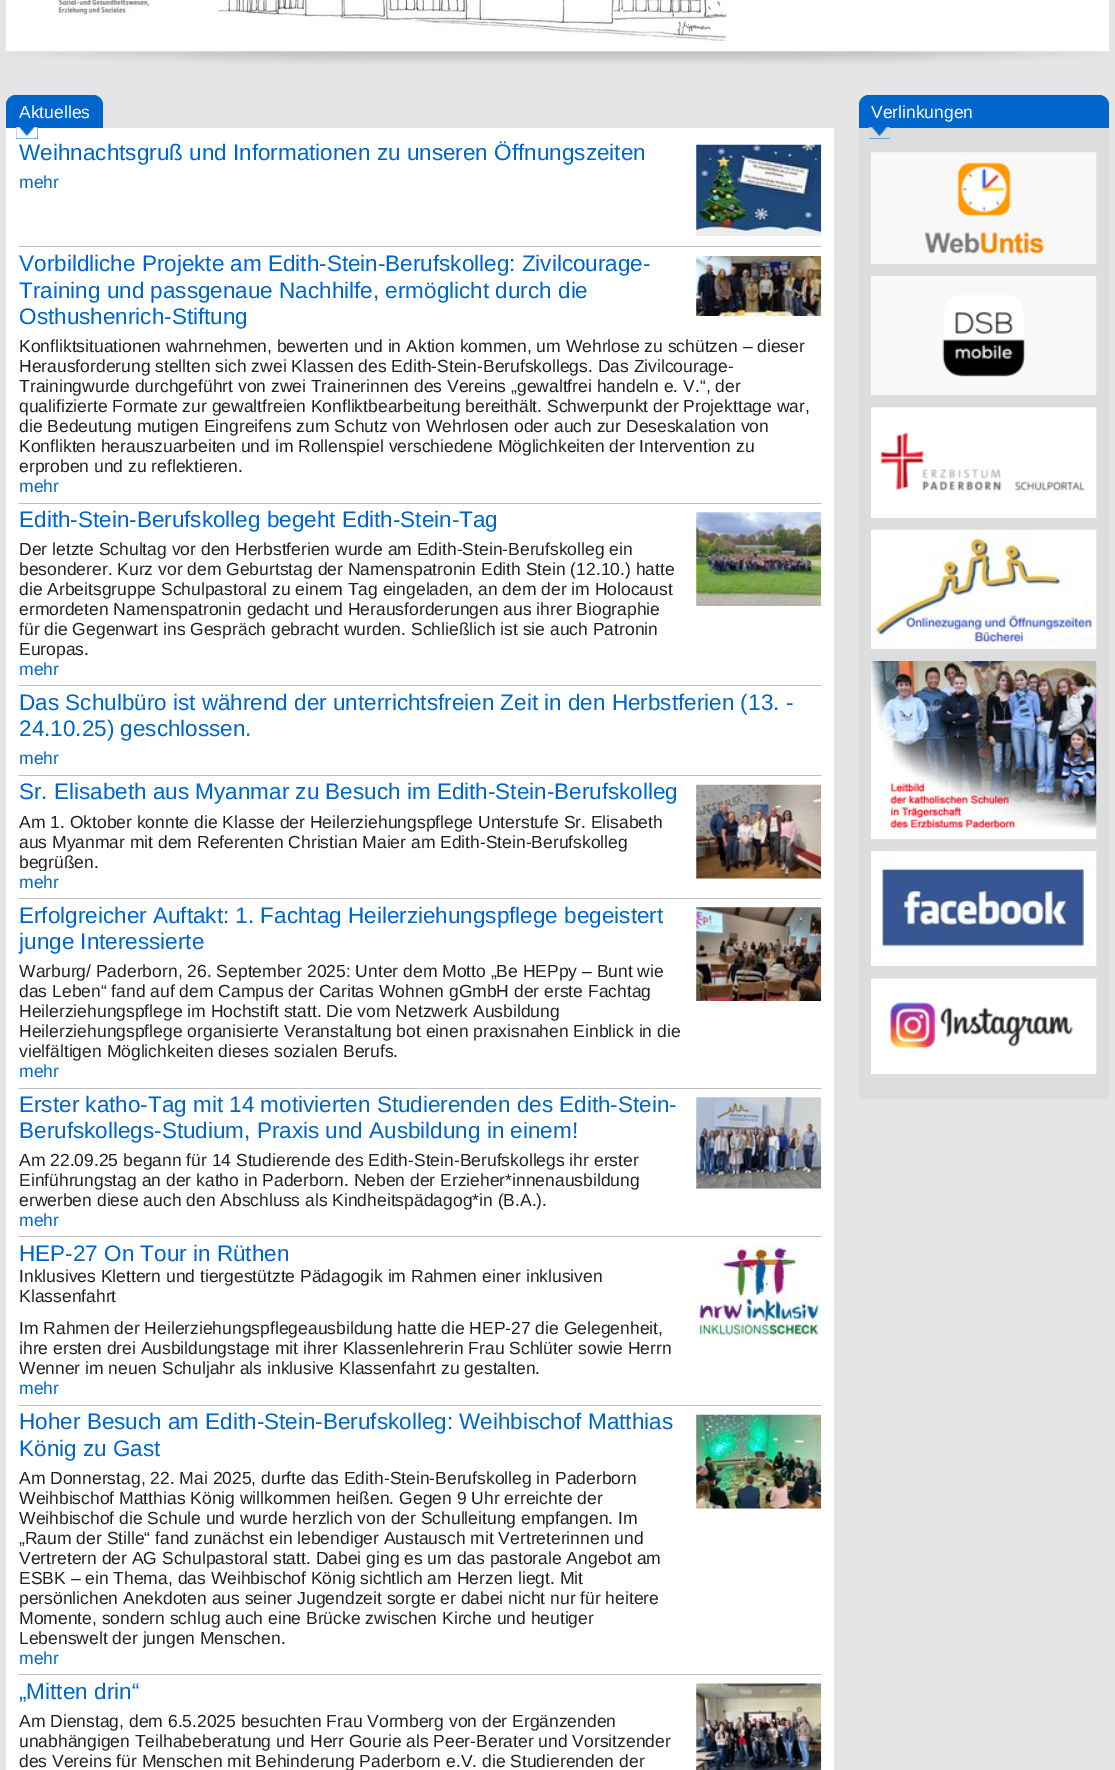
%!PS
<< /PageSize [1115 1770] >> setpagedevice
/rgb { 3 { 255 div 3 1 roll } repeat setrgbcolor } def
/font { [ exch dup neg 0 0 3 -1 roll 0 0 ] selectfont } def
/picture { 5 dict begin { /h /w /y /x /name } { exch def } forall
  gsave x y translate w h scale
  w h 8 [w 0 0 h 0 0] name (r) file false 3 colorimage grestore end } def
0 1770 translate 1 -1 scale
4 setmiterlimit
229 229 229 rgb
0 0 1115 1770 rectfill
(img/1.rgb) 7 51 1101 14 picture
255 255 255 rgb
6 0 1103 51 rectfill
(img/2.rgb) 56 0 671 41 picture
0 102 204 rgb
16 95 moveto 93 95 lineto 98.5 95 103 99.5 103 105 curveto 103 128 lineto 6 128 lineto 6 105 lineto 6 99.5 10.5 95 16 95 curveto closepath fill
255 255 255 rgb
6 128 828 1642 rectfill
0 102 204 rgb
16 128 22 11 rectfill
(img/3.rgb) 16 127 22 12 picture
192 192 192 rgb
19 246 802 1 rectfill
(img/4.rgb) 696 144 126 92 picture
19 503 802 1 rectfill
(img/5.rgb) 696 256 126 60 picture
19 685 802 1 rectfill
(img/6.rgb) 696 512 126 94 picture
19 775 802 1 rectfill
19 898 802 1 rectfill
(img/7.rgb) 696 784 126 95 picture
19 1088 802 1 rectfill
(img/8.rgb) 696 907 126 94 picture
19 1236 802 1 rectfill
(img/9.rgb) 696 1097 126 92 picture
19 1405 802 1 rectfill
(img/10.rgb) 696 1246 125 93 picture
19 1674 802 1 rectfill
(img/11.rgb) 696 1414 126 95 picture
(img/12.rgb) 696 1683 126 87 picture
0 102 204 rgb
869 95 moveto 1099 95 lineto 1104.5 95 1109 99.5 1109 105 curveto 1109 128 lineto 859 128 lineto 859 105 lineto 859 99.5 863.5 95 869 95 curveto closepath fill
221 221 221 rgb
859 128 250 971 rectfill
0 102 204 rgb
869 128 21 11 rectfill
(img/13.rgb) 868 127 22 12 picture
255 255 255 rgb
871 153 225 111 rectfill
(img/14.rgb) 871 152 226 112 picture
871 276 225 119 rectfill
(img/15.rgb) 871 276 226 119 picture
871 408 225 110 rectfill
(img/16.rgb) 871 407 226 110 picture
871 530 225 119 rectfill
(img/17.rgb) 872 529 225 120 picture
871 661 225 178 rectfill
(img/18.rgb) 871 661 226 178 picture
871 851 3 115 rectfill
(img/19.rgb) 874 851 223 115 picture
871 979 225 95 rectfill
(img/20.rgb) 871 978 226 96 picture
/LiberationSans-Regular 17.5 font
19 118 moveto (Aktuelles) show
/LiberationSans-Regular 22.5 font
0 102 204 rgb
19 160 moveto (Weihnachtsgruß und Informationen zu unseren Öffnungszeiten) show
/LiberationSans-Regular 17.5 font
19 188 moveto (mehr) show
/LiberationSans-Regular 22.5 font
[
  [(Vorbildliche Projekte am Edith-Stein-Berufskolleg: Zivilcourage-) 19 271]
  [(Training und passgenaue Nachhilfe, ermöglicht durch die) 19 298]
  [(Osthushenrich-Stiftung) 19 324]
] { aload pop moveto show } forall
/LiberationSans-Regular 17.5 font
34 34 34 rgb
[
  [(Konfliktsituationen wahrnehmen, bewerten und in Aktion kommen, um Wehrlose zu schützen – dieser) 19 352]
  [(Herausforderung stellten sich zwei Klassen des Edith-Stein-Berufskollegs. Das Zivilcourage-) 19 372]
  [(Trainingwurde durchgeführt von zwei Trainerinnen des Vereins „gewaltfrei handeln e. V.“, der) 19 392]
  [(qualifizierte Formate zur gewaltfreien Konfliktbearbeitung bereithält. Schwerpunkt der Projekttage war,) 19 412]
  [(die Bedeutung mutigen Eingreifens zum Schutz von Wehrlosen oder auch zur Deseskalation von) 19 432]
  [(Konflikten herauszuarbeiten und im Rollenspiel verschiedene Möglichkeiten der Intervention zu) 19 452]
  [(erproben und zu reflektieren.) 19 472]
] { aload pop moveto show } forall
0 102 204 rgb
19 492 moveto (mehr) show
/LiberationSans-Regular 22.5 font
19 527 moveto (Edith-Stein-Berufskolleg begeht Edith-Stein-Tag) show
/LiberationSans-Regular 17.5 font
34 34 34 rgb
[
  [(Der letzte Schultag vor den Herbstferien wurde am Edith-Stein-Berufskolleg ein) 19 555]
  [(besonderer. Kurz vor dem Geburtstag der Namenspatronin Edith Stein \(12.10.\) hatte) 19 575]
  [(die Arbeitsgruppe Schulpastoral zu einem Tag eingeladen, an dem der im Holocaust) 19 595]
  [(ermordeten Namenspatronin gedacht und Herausforderungen aus ihrer Biographie) 19 615]
  [(für die Gegenwart ins Gespräch gebracht wurden. Schließlich ist sie auch Patronin) 19 635]
  [(Europas.) 19 655]
] { aload pop moveto show } forall
0 102 204 rgb
19 675 moveto (mehr) show
/LiberationSans-Regular 22.5 font
19 710 moveto (Das Schulbüro ist während der unterrichtsfreien Zeit in den Herbstferien \(13. -) show
19 736 moveto (24.10.25\) geschlossen.) show
/LiberationSans-Regular 17.5 font
19 764 moveto (mehr) show
/LiberationSans-Regular 22.5 font
19 799 moveto (Sr. Elisabeth aus Myanmar zu Besuch im Edith-Stein-Berufskolleg) show
/LiberationSans-Regular 17.5 font
34 34 34 rgb
19 828 moveto (Am 1. Oktober konnte die Klasse der Heilerziehungspflege Unterstufe Sr. Elisabeth) show
19 848 moveto (aus Myanmar mit dem Referenten Christian Maier am Edith-Stein-Berufskolleg) show
gsave
19 811 665 60 rectclip
19 868 moveto (begrüßen.) show
grestore
0 102 204 rgb
19 888 moveto (mehr) show
/LiberationSans-Regular 22.5 font
19 923 moveto (Erfolgreicher Auftakt: 1. Fachtag Heilerziehungspflege begeistert) show
19 949 moveto (junge Interessierte) show
/LiberationSans-Regular 17.5 font
34 34 34 rgb
[
  [(Warburg/ Paderborn, 26. September 2025: Unter dem Motto „Be HEPpy – Bunt wie) 19 977]
  [(das Leben“ fand auf dem Campus der Caritas Wohnen gGmbH der erste Fachtag) 19 997]
  [(Heilerziehungspflege im Hochstift statt. Die vom Netzwerk Ausbildung) 19 1017]
  [(Heilerziehungspflege organisierte Veranstaltung bot einen praxisnahen Einblick in die) 19 1037]
  [(vielfältigen Möglichkeiten dieses sozialen Berufs.) 19 1057]
] { aload pop moveto show } forall
0 102 204 rgb
19 1077 moveto (mehr) show
/LiberationSans-Regular 22.5 font
19 1112 moveto (Erster katho-Tag mit 14 motivierten Studierenden des Edith-Stein-) show
19 1138 moveto (Berufskollegs-Studium, Praxis und Ausbildung in einem!) show
/LiberationSans-Regular 17.5 font
34 34 34 rgb
[
  [(Am 22.09.25 begann für 14 Studierende des Edith-Stein-Berufskollegs ihr erster) 19 1166]
  [(Einführungstag an der katho in Paderborn. Neben der Erzieher*innenausbildung) 19 1186]
  [(erwerben diese auch den Abschluss als Kindheitspädagog*in \(B.A.\).) 19 1206]
] { aload pop moveto show } forall
0 102 204 rgb
19 1226 moveto (mehr) show
/LiberationSans-Regular 22.5 font
19 1261 moveto (HEP-27 On Tour in Rüthen) show
/LiberationSans-Regular 17.5 font
34 34 34 rgb
[
  [(Inklusives Klettern und tiergestützte Pädagogik im Rahmen einer inklusiven) 19 1282]
  [(Klassenfahrt) 19 1302]
  [(Im Rahmen der Heilerziehungspflegeausbildung hatte die HEP-27 die Gelegenheit,) 19 1334]
  [(ihre ersten drei Ausbildungstage mit ihrer Klassenlehrerin Frau Schlüter sowie Herrn) 19 1354]
  [(Wenner im neuen Schuljahr als inklusive Klassenfahrt zu gestalten.) 19 1374]
] { aload pop moveto show } forall
0 102 204 rgb
19 1394 moveto (mehr) show
/LiberationSans-Regular 22.5 font
19 1429 moveto (Hoher Besuch am Edith-Stein-Berufskolleg: Weihbischof Matthias) show
19 1456 moveto (König zu Gast) show
/LiberationSans-Regular 17.5 font
34 34 34 rgb
[
  [(Am Donnerstag, 22. Mai 2025, durfte das Edith-Stein-Berufskolleg in Paderborn) 19 1484]
  [(Weihbischof Matthias König willkommen heißen. Gegen 9 Uhr erreichte der) 19 1504]
  [(Weihbischof die Schule und wurde herzlich von der Schulleitung empfangen. Im) 19 1524]
  [(„Raum der Stille“ fand zunächst ein lebendiger Austausch mit Vertreterinnen und) 19 1544]
  [(Vertretern der AG Schulpastoral statt. Dabei ging es um das pastorale Angebot am) 19 1564]
  [(ESBK – ein Thema, das Weihbischof König sichtlich am Herzen liegt. Mit) 19 1584]
  [(persönlichen Anekdoten aus seiner Jugendzeit sorgte er dabei nicht nur für heitere) 19 1604]
  [(Momente, sondern schlug auch eine Brücke zwischen Kirche und heutiger) 19 1624]
  [(Lebenswelt der jungen Menschen.) 19 1644]
] { aload pop moveto show } forall
0 102 204 rgb
19 1664 moveto (mehr) show
/LiberationSans-Regular 22.5 font
19 1699 moveto („Mitten drin“) show
/LiberationSans-Regular 17.5 font
34 34 34 rgb
[
  [(Am Dienstag, dem 6.5.2025 besuchten Frau Vormberg von der Ergänzenden) 19 1727]
  [(unabhängigen Teilhabeberatung und Herr Gourie als Peer-Berater und Vorsitzender) 19 1747]
  [(des Vereins für Menschen mit Behinderung Paderborn e.V. die Studierenden der) 19 1767]
] { aload pop moveto show } forall
255 255 255 rgb
871 118 moveto (Verlinkungen) show
showpage
